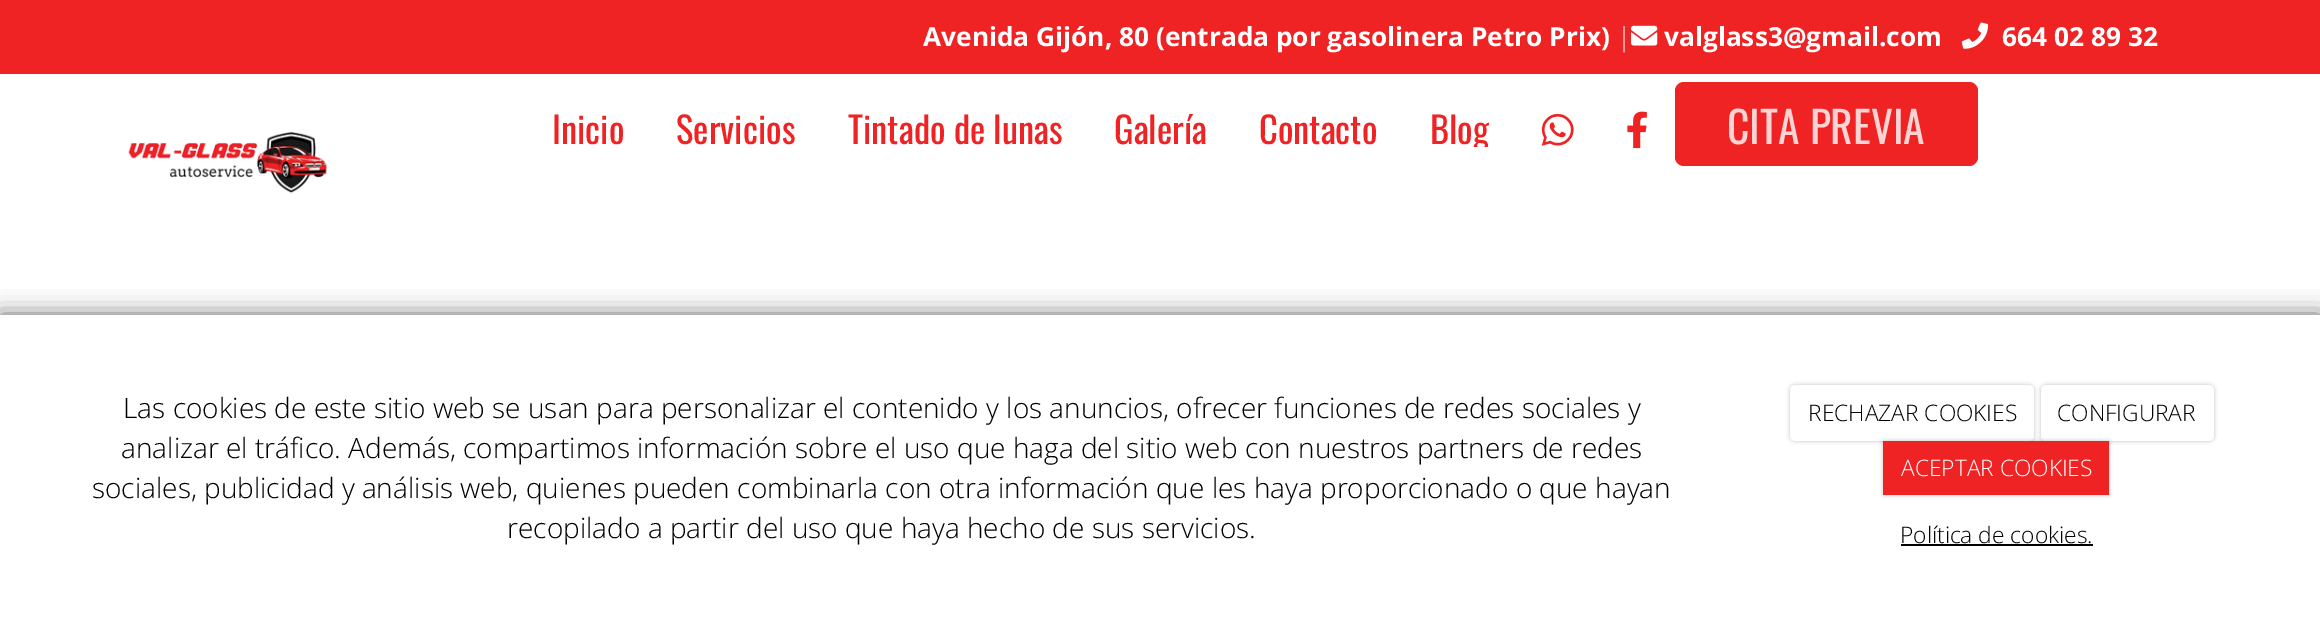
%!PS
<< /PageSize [2320 621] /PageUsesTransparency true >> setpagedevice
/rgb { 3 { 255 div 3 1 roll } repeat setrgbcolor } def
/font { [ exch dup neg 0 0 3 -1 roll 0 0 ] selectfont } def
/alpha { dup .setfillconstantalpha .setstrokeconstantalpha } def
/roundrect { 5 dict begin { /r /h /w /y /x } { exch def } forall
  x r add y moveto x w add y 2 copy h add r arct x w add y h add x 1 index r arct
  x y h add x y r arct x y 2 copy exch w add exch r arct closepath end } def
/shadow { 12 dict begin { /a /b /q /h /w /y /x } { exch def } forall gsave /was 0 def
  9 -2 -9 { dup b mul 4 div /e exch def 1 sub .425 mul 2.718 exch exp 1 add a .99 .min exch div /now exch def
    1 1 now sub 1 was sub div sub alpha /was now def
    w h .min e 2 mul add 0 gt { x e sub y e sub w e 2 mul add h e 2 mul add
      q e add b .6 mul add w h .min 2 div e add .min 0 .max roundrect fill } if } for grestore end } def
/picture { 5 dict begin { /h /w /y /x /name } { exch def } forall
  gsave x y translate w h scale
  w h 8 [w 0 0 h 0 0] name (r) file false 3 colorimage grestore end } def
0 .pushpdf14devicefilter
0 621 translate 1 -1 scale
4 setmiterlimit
255 255 255 rgb
0 0 2320 621 rectfill
239 34 36 rgb
0 0 2320 74 rectfill
(img/1.rgb) 1631 25 27 21 picture
(img/2.rgb) 1961 22 28 27 picture
(img/3.rgb) 128 131 200 62 picture
(img/4.rgb) 1541 113 33 33 picture
(img/5.rgb) 1627 111 20 38 picture
1675 82 303 84 9 roundrect fill
0 0 0 rgb
0 315 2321 306 0 11.5 0.6 shadow
255 255 255 rgb
0 315 2320 306 rectfill
0 0 0 rgb
1790 385 244 56 5 2 0.25 shadow
255 255 255 rgb
1790 385 244 56 5 roundrect fill
0 0 0 rgb
2041 385 173 56 5 2 0.25 shadow
255 255 255 rgb
2041 385 173 56 5 roundrect fill
0 0 0 rgb
1883 441 226 54 0 2 0.25 shadow
239 34 36 rgb
1883 441 226 54 rectfill
0 0 0 rgb
1901 544 192 2 rectfill
/OpenSans-Bold 26.25 font
255 255 255 rgb
923 46 moveto (Avenida Gijón, 80 \(entrada por gasolinera Petro Prix\)) show
/OpenSans-Light 26.25 font
1617 46 moveto (|) show
/OpenSans-Bold 26.25 font
1664 46 moveto (valglass3@gmail.com) show
2002 46 moveto (664 02 89 32) show
/Oswald-Regular 36.5 font
239 34 36 rgb
[
  [(Inicio) 552 144]
  [(Servicios) 676 144]
  [(Tintado de lunas) 848 144]
  [(Galería) 1114 144]
  [(Contacto) 1259 144]
  [(Blog) 1430 144]
] { aload pop moveto show } forall
255 255 255 rgb
1430 147 59 4 2 roundrect fill
/Oswald-Regular 43.5 font
252 211 211 rgb
1727 144 moveto (CITA PREVIA) show
/OpenSans-Light 28 font
0 0 0 rgb
[
  [(Las cookies de este sitio web se usan para personalizar el contenido y los anuncios, ofrecer funciones de redes sociales y) 123 418]
  [(analizar el tráfico. Además, compartimos información sobre el uso que haga del sitio web con nuestros partners de redes) 121 458]
  [(sociales, publicidad y análisis web, quienes pueden combinarla con otra información que les haya proporcionado o que hayan) 92 498]
  [(recopilado a partir del uso que haya hecho de sus servicios.) 507 538]
] { aload pop moveto show } forall
/OpenSans-Light 22.75 font
1808 421 moveto (RECHAZAR COOKIES) show
2057 421 moveto (CONFIGURAR) show
255 255 255 rgb
1901 476 moveto (ACEPTAR COOKIES) show
0 0 0 rgb
1900 543 moveto (Política de cookies.) show
.poppdf14devicefilter showpage
